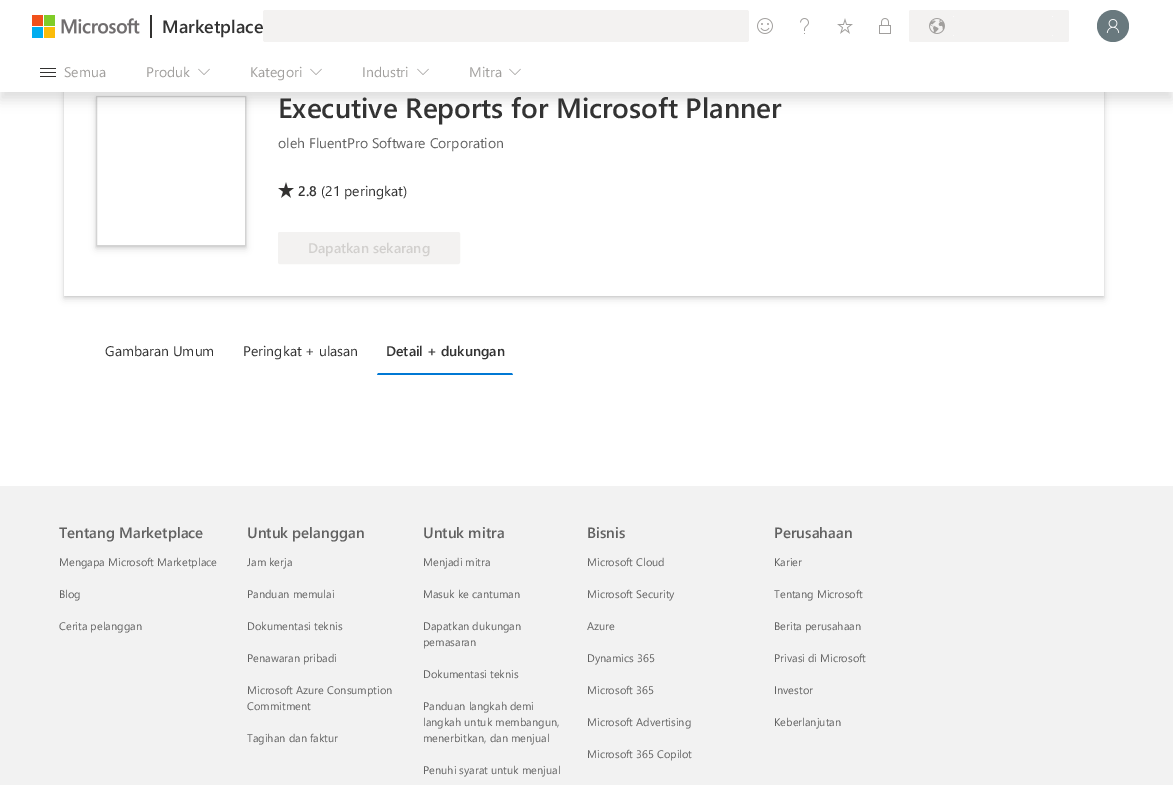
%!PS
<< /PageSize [1173 785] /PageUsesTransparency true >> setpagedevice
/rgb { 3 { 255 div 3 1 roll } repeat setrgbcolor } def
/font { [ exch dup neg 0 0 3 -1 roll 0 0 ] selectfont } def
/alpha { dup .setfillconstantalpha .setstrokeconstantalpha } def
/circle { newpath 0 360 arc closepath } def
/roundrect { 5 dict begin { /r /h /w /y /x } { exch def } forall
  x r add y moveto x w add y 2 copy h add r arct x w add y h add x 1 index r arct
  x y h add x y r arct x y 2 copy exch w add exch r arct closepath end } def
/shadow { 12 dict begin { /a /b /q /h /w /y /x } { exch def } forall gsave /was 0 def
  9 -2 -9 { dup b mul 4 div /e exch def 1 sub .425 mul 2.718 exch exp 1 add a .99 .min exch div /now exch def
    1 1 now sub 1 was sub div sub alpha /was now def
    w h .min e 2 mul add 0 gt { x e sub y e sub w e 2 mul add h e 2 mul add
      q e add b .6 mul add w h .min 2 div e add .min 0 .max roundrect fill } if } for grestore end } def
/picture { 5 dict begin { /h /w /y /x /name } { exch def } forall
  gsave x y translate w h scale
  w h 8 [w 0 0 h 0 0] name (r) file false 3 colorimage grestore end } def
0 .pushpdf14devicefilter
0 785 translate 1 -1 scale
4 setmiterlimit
255 255 255 rgb
0 0 1173 785 rectfill
gsave
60 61 moveto 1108 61 lineto 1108 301 lineto 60 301 lineto closepath 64 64 moveto 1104 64 lineto 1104 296 lineto 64 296 lineto closepath eoclip newpath
0 0 0 rgb
64 65 1040 232 0 1 0.11 shadow
grestore
gsave
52 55 moveto 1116 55 lineto 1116 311 lineto 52 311 lineto closepath 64 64 moveto 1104 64 lineto 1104 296 lineto 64 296 lineto closepath eoclip newpath
0 0 0 rgb
64 67 1040 232 0 3.5 0.13 shadow
grestore
gsave
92 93 moveto 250 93 lineto 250 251 lineto 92 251 lineto closepath 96 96 moveto 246 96 lineto 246 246 lineto 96 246 lineto closepath eoclip newpath
0 0 0 rgb
96 97 150 150 0 1 0.11 shadow
grestore
gsave
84 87 moveto 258 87 lineto 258 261 lineto 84 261 lineto closepath 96 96 moveto 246 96 lineto 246 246 lineto 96 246 lineto closepath eoclip newpath
0 0 0 rgb
96 99 150 150 0 3.5 0.13 shadow
grestore
211 211 211 rgb
96.5 96.5 149 149 rectstroke
0 0 0 rgb
0 8 1173 92 0 6 0.12 shadow
255 255 255 rgb
0 0 1173 92 rectfill
(img/1.rgb) 32 15 108 23 picture
[
  [150 15 2 23 50 49 48]
  [263 10 486 32 243 242 241]
  [263 10 1 1 252 251 251]
  [748 10 1 1 252 251 251]
  [263 41 1 1 252 251 251]
  [748 41 1 1 252 251 251]
] { aload pop rgb rectfill } forall
(img/2.rgb) 757 18 16 16 picture
(img/3.rgb) 800 18 9 16 picture
(img/4.rgb) 837 18 16 16 picture
(img/5.rgb) 879 18 12 16 picture
243 242 241 rgb
909 10 160 32 2 roundrect fill
(img/6.rgb) 929 18 16 16 picture
[
  [953 16 1 1 252 251 251]
  [1052 16 1 1 252 251 251]
  [953 35 1 1 252 251 251]
  [1052 35 1 1 252 251 251]
] { aload pop rgb rectfill } forall
105 121 126 rgb
1113 26 16 circle fill
(img/7.rgb) 1106 19 14 14 picture
(img/8.rgb) 40 68 16 9 picture
(img/9.rgb) 198 68 12 7 picture
(img/9.rgb) 310 68 12 7 picture
(img/9.rgb) 417 68 12 7 picture
(img/9.rgb) 509 68 12 7 picture
(img/10.rgb) 278 182 16 16 picture
243 242 241 rgb
278.5 232.5 181 31 1.5 roundrect gsave fill grestore
stroke
0 120 212 rgb
513 375 moveto 377 375 lineto 378 373 lineto 512 373 lineto closepath fill
242 242 242 rgb
0 486 1173 299 rectfill
/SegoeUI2-SemiBold 18 font
51 51 51 rgb
162 33 moveto (Marketplace) show
/SegoeUI2-Regular 14 font
161 159 157 rgb
[
  [(Semua) 64 77]
  [(Produk) 146 77]
  [(Kategori) 250 77]
  [(Industri) 362 77]
  [(Mitra) 469 77]
] { aload pop moveto show } forall
/SegoeUI2-SemiBold 28 font
51 51 51 rgb
278 118 moveto (Executive Reports for Microsoft Planner) show
/SegoeUI2-Regular 14 font
97 97 97 rgb
278 148 moveto (oleh FluentPro Software Corporation) show
/SegoeUI2-SemiBold 14 font
51 51 51 rgb
298 196 moveto (2.8) show
/SegoeUI2-Regular 14 font
321 196 moveto (\(21 peringkat\)) show
/SegoeUI2-SemiBold 14 font
210 208 206 rgb
308 253 moveto (Dapatkan sekarang) show
/SegoeUI2-Regular 14 font
51 51 51 rgb
105 356 moveto (Gambaran Umum) show
243 356 moveto (Peringkat + ulasan) show
/SegoeUI2-SemiBold 14 font
386 356 moveto (Detail + dukungan) show
/SegoeUI-SemiBold 15 font
97 97 97 rgb
59 538 moveto (Tentang Marketplace) show
/SegoeUI-Regular 11 font
[
  [(Mengapa Microsoft Marketplace) 59 566]
  [(Blog) 59 598]
  [(Cerita pelanggan) 59 630]
] { aload pop moveto show } forall
/SegoeUI-SemiBold 15 font
247 538 moveto (Untuk pelanggan) show
/SegoeUI-Regular 11 font
[
  [(Jam kerja) 247 566]
  [(Panduan memulai) 247 598]
  [(Dokumentasi teknis) 247 630]
  [(Penawaran pribadi) 247 662]
  [(Microsoft Azure Consumption) 247 694]
  [(Commitment) 247 710]
  [(Tagihan dan faktur) 247 742]
] { aload pop moveto show } forall
/SegoeUI-SemiBold 15 font
423 538 moveto (Untuk mitra) show
/SegoeUI-Regular 11 font
[
  [(Menjadi mitra) 423 566]
  [(Masuk ke cantuman) 423 598]
  [(Dapatkan dukungan) 423 630]
  [(pemasaran) 423 646]
  [(Dokumentasi teknis) 423 678]
  [(Panduan langkah demi) 423 710]
  [(langkah untuk membangun,) 423 726]
  [(menerbitkan, dan menjual) 423 742]
  [(Penuhi syarat untuk menjual) 423 774]
] { aload pop moveto show } forall
/SegoeUI-SemiBold 15 font
587 538 moveto (Bisnis) show
/SegoeUI-Regular 11 font
[
  [(Microsoft Cloud) 587 566]
  [(Microsoft Security) 587 598]
  [(Azure) 587 630]
  [(Dynamics 365) 587 662]
  [(Microsoft 365) 587 694]
  [(Microsoft Advertising) 587 726]
  [(Microsoft 365 Copilot) 587 758]
] { aload pop moveto show } forall
/SegoeUI-SemiBold 15 font
774 538 moveto (Perusahaan) show
/SegoeUI-Regular 11 font
[
  [(Karier) 774 566]
  [(Tentang Microsoft) 774 598]
  [(Berita perusahaan) 774 630]
  [(Privasi di Microsoft) 774 662]
  [(Investor) 774 694]
  [(Keberlanjutan) 774 726]
] { aload pop moveto show } forall
.poppdf14devicefilter showpage
